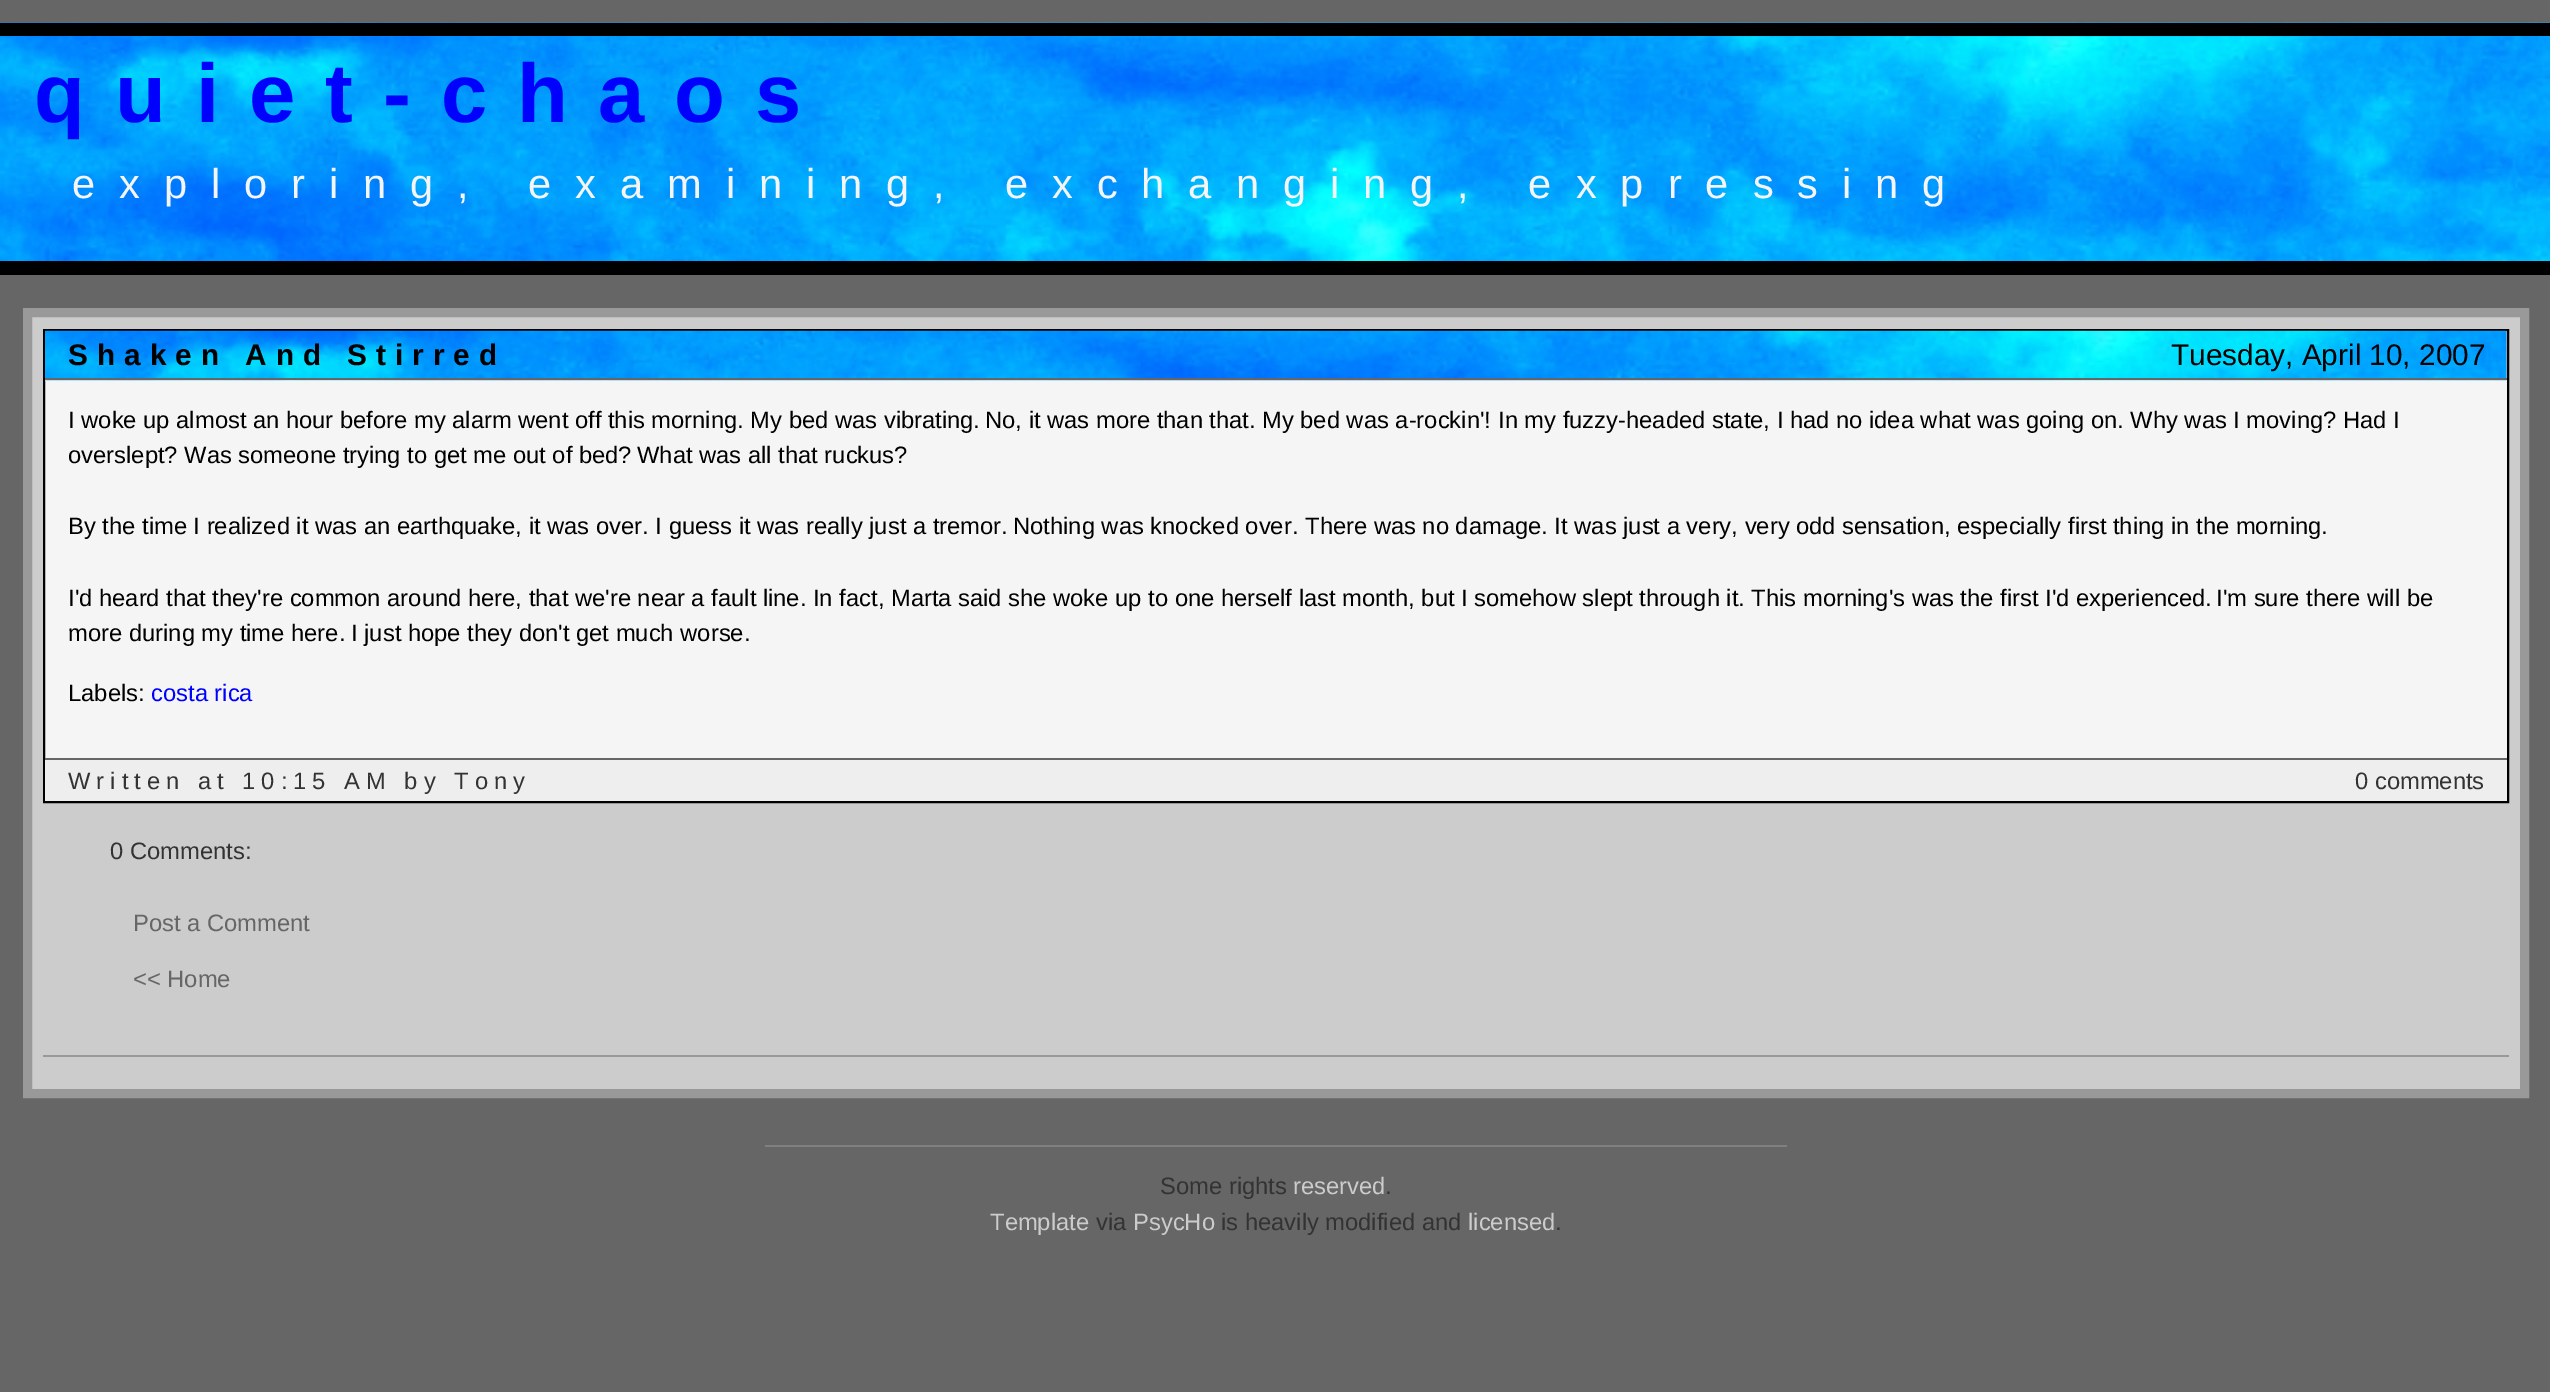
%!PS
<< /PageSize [2550 1392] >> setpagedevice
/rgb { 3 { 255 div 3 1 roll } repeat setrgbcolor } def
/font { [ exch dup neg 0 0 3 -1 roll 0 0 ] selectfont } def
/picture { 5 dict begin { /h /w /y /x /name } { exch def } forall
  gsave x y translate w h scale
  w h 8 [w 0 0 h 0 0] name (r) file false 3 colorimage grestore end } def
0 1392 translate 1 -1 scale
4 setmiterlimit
102 102 102 rgb
0 0 2550 1392 rectfill
(img/1.rgb) 0 22 2550 239 picture
0 0 0 rgb
0 23 2550 13 rectfill
0 261 2550 14 rectfill
204 204 204 rgb
27.5 312.5 moveto 2524.5 312.5 lineto 2524.5 1093.5 lineto 27.5 1093.5 lineto closepath gsave fill grestore
153 153 153 rgb
9 setlinewidth
stroke
245 245 245 rgb
45 380 2462 378 rectfill
0 0 0 rgb
2 setlinewidth
44 330 2464 472 rectstroke
(img/2.rgb) 45 330 2462 51 picture
[
  [45 378 2462 2 102 102 102]
  [45 760 2462 41 238 238 238]
  [45 758 2462 2 102 102 102]
  [43 1055 2466 2 153 153 153]
  [765 1145 1022 2 128 128 128]
] { aload pop rgb rectfill } forall
/LiberationSans-Bold 83.25 font
0 0 255 rgb
34 122 moveto 30 0 (quiet-chaos) ashow
/LiberationSans-Regular 41.6 font
245 245 245 rgb
72 198 moveto 24 0 (exploring, examining, exchanging, expressing) ashow
/LiberationSans-Bold 29.75 font
0 0 0 rgb
68 365 moveto 9 0 (Shaken And Stirred) ashow
/LiberationSans-Regular 29.75 font
2171 365 moveto (Tuesday, April 10, 2007) show
/LiberationSans-Regular 23.75 font
[
  [(I woke up almost an hour before my alarm went off this morning. My bed was vibrating.) 68 428]
  [(No, it was more than that.) 985 428]
  [(My bed was a-rockin'!) 1262 428]
  [(In my fuzzy-headed state, I had no idea what was going on. Why was I moving? Had I) 1498 428]
  [(overslept? Was someone trying to get me out of bed?) 68 463]
  [(What was all that ruckus?) 637 463]
  [(By the time I realized it was an earthquake, it was over. I guess it was really just a tremor.) 68 534]
  [(Nothing was knocked over.) 1013 534]
  [(There was no damage. It was just a very, very odd sensation, especially first thing in the morning.) 1305 534]
  [(I'd heard that they're common around here, that we're near a fault line. In fact, Marta said she woke up to one herself last month, but I somehow slept through it. This morning's was the first I'd experienced.) 68 606]
  [(I'm sure there will be) 2216 606]
  [(more during my time here.) 68 641]
  [(I just hope they don't get much worse.) 351 641]
  [(Labels:) 68 701]
] { aload pop moveto show } forall
0 0 255 rgb
151 701 moveto (costa rica) show
51 51 51 rgb
68 789 moveto 6 0 (Written at 10:15 AM by Tony) ashow
2355 789 moveto (0 comments) show
110 859 moveto (0 Comments:) show
102 102 102 rgb
133 931 moveto (Post a Comment) show
133 987 moveto (<< Home) show
51 51 51 rgb
1160 1194 moveto (Some rights) show
204 204 204 rgb
1293 1194 moveto (reserved) show
51 51 51 rgb
1385 1194 moveto (.) show
204 204 204 rgb
990 1230 moveto (Template) show
51 51 51 rgb
1096 1230 moveto (via) show
204 204 204 rgb
1133 1230 moveto (PsycHo) show
51 51 51 rgb
1221 1230 moveto (is heavily modified and) show
204 204 204 rgb
1468 1230 moveto (licensed) show
51 51 51 rgb
1555 1230 moveto (.) show
showpage
